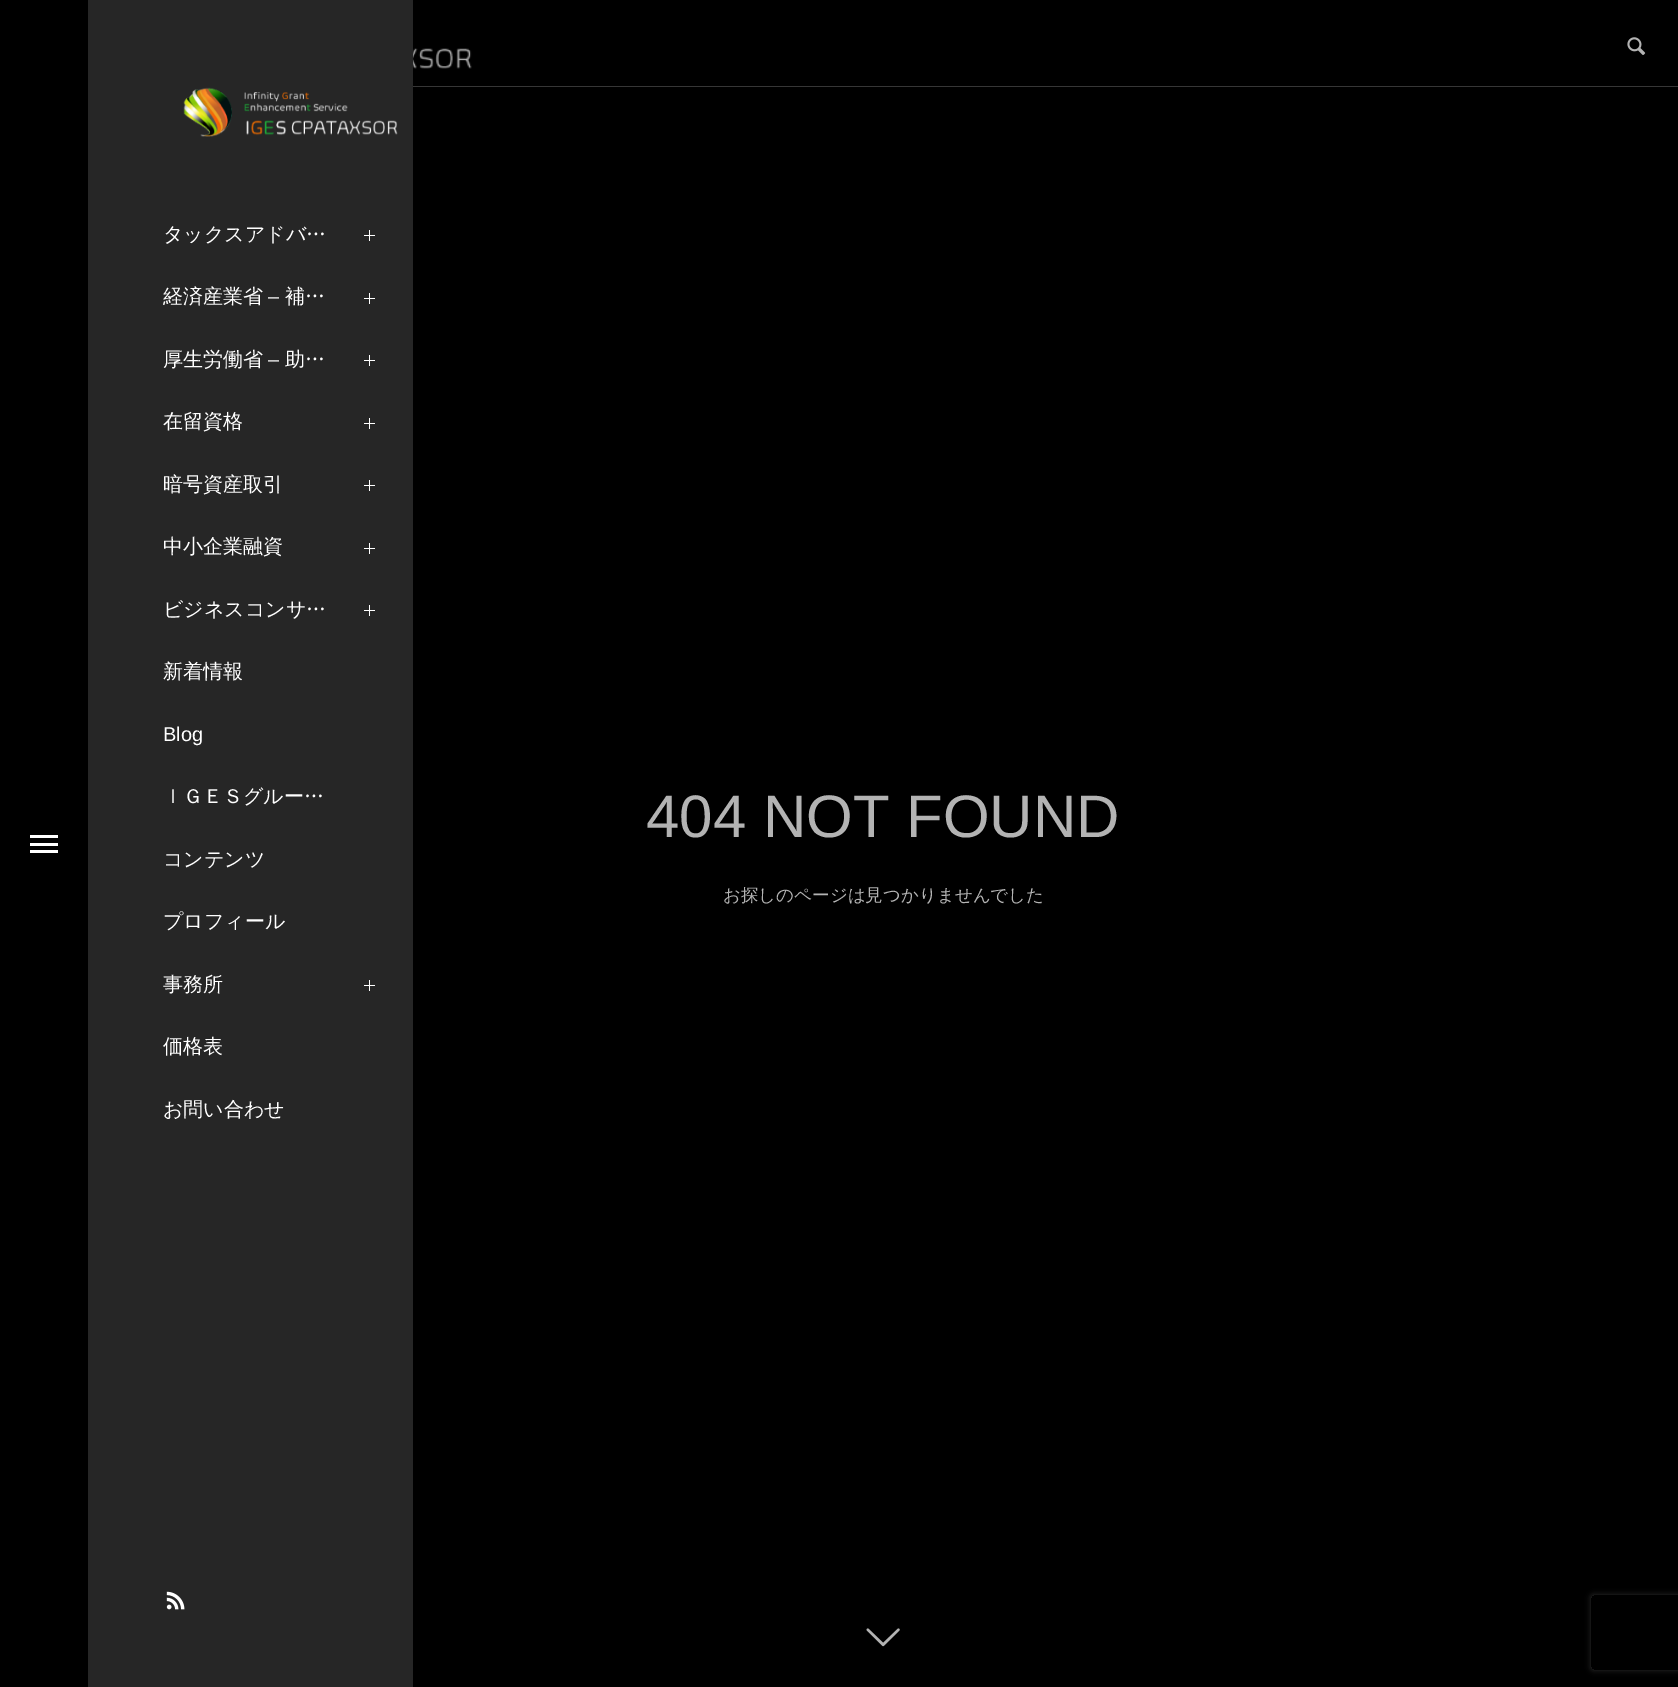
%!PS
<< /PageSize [1678 1687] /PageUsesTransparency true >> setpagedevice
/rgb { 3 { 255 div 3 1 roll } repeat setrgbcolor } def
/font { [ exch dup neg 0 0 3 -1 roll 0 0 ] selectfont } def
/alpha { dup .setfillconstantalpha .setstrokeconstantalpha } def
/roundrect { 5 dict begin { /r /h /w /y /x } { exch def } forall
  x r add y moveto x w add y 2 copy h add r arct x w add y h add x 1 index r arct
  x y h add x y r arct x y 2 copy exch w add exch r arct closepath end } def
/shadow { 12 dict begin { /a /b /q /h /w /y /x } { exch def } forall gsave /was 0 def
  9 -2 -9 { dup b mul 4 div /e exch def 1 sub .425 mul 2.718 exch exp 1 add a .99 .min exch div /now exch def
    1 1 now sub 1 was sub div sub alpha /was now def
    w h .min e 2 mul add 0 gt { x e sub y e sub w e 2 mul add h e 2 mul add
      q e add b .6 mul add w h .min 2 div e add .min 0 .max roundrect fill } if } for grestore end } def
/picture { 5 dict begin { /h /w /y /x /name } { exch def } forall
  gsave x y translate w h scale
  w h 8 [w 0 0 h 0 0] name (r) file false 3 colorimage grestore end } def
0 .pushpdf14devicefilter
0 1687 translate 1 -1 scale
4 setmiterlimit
0 0 0 rgb
0 0 1678 1687 rectfill
[
  [30 835 28 3 255 255 255]
  [30 843 28 3 255 255 255]
  [30 850 28 3 255 255 255]
  [88 0 325 1687 38 38 38]
] { aload pop rgb rectfill } forall
(img/1.rgb) 183 87 215 50 picture
[
  [369 230 1 11 255 255 255]
  [364 235 11 1 255 255 255]
  [369 293 1 11 255 255 255]
  [364 298 11 1 255 255 255]
  [369 355 1 11 255 255 255]
  [364 360 11 1 255 255 255]
  [369 418 1 11 255 255 255]
  [364 423 11 1 255 255 255]
  [369 480 1 11 255 255 255]
  [364 485 11 1 255 255 255]
  [369 543 1 11 255 255 255]
  [364 548 11 1 255 255 255]
  [369 605 1 11 255 255 255]
  [364 610 11 1 255 255 255]
  [369 980 1 11 255 255 255]
  [364 985 11 1 255 255 255]
] { aload pop rgb rectfill } forall
(img/2.rgb) 166 1591 19 19 picture
54 54 54 rgb
413 86 1265 1 rectfill
(img/3.rgb) 1627 37 19 18 picture
(img/4.rgb) 413 48 59 21 picture
(img/5.rgb) 866 1628 34 19 picture
gsave
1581 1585 moveto 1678 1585 lineto 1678 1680 lineto 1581 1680 lineto closepath 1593.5 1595 moveto 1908.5 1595 lineto 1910 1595 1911 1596 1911 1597.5 curveto 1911 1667.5 lineto 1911 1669 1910 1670 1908.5 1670 curveto 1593.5 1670 lineto 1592 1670 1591 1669 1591 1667.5 curveto 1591 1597.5 lineto 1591 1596 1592 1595 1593.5 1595 curveto closepath eoclip newpath
45 45 45 rgb
1591 1595 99 75 2.5 3 1 shadow
grestore
/WenQuanYiZenHei-Medium 20 font
255 255 255 rgb
163 241 moveto (タックスアドバ…) show
163 303 moveto (経済産業省) show
/LiberationSans-Regular 20 font
268 303 moveto (–) show
/WenQuanYiZenHei-Medium 20 font
285 303 moveto (補…) show
163 366 moveto (厚生労働省) show
/LiberationSans-Regular 20 font
268 366 moveto (–) show
/WenQuanYiZenHei-Medium 20 font
[
  [(助…) 285 366]
  [(在留資格) 163 428]
  [(暗号資産取引) 163 491]
  [(中小企業融資) 163 553]
  [(ビジネスコンサ…) 163 616]
  [(新着情報) 163 678]
] { aload pop moveto show } forall
/LiberationSans-Regular 20 font
163 741 moveto (Blog) show
/WenQuanYiZenHei-Medium 20 font
[
  [(ＩＧＥＳグルー…) 163 803]
  [(コンテンツ) 163 866]
  [(プロフィール) 163 928]
  [(事務所) 163 991]
  [(価格表) 163 1053]
  [(お問い合わせ) 163 1116]
] { aload pop moveto show } forall
/LiberationSans-Regular 60 font
179 179 179 rgb
646 837 moveto (404 NOT FOUND) show
/WenQuanYiZenHei-Medium 17.5 font
723 901 moveto (お探しのページは見つかりませんでした) show
.poppdf14devicefilter showpage
